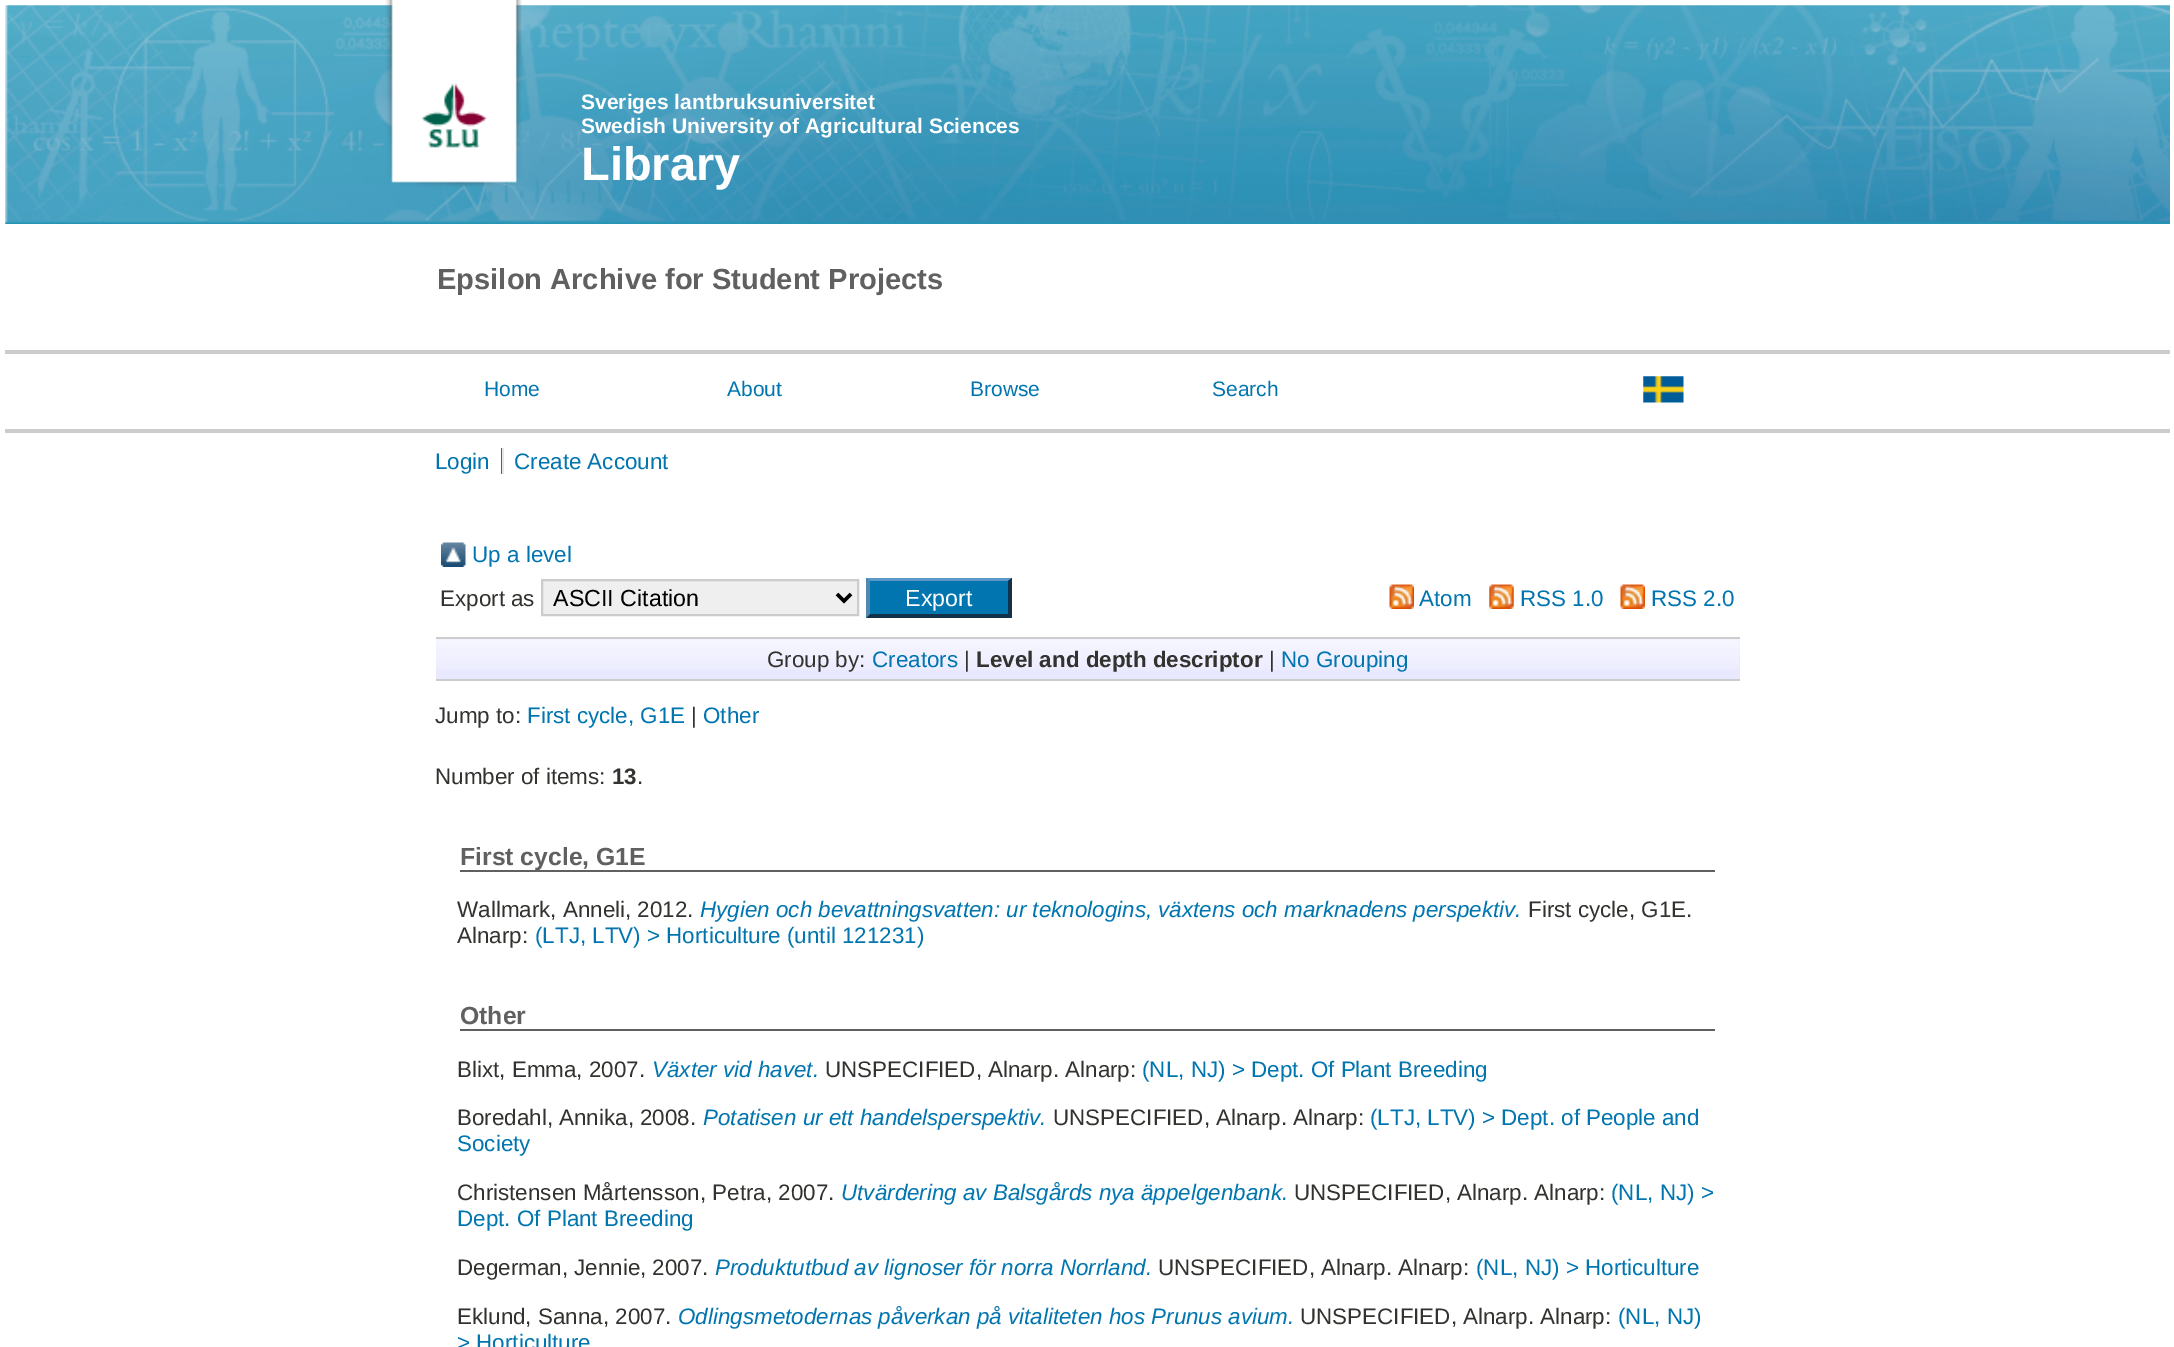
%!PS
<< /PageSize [2174 1347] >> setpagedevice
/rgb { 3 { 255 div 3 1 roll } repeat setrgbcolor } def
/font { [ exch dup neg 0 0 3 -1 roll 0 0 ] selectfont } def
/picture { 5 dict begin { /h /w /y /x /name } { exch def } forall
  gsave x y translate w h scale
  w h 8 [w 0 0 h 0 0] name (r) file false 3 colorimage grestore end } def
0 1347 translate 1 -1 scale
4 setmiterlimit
255 255 255 rgb
0 0 2174 1347 rectfill
(img/1.rgb) 5 5 2165 219 picture
(img/2.rgb) 385 0 137 187 picture
204 204 204 rgb
5 350 2165 4 rectfill
(img/3.rgb) 1643 376 41 27 picture
[
  [5 429 2165 4 204 204 204]
  [501 448 1 26 96 96 96]
  [502 448 2 26 232 232 232]
] { aload pop rgb rectfill } forall
(img/4.rgb) 441 542 25 25 picture
239 239 239 rgb
542 580 moveto 858 580 lineto 858 615 lineto 542 615 lineto closepath gsave fill grestore
204 204 204 rgb
2 setlinewidth
stroke
0 0 0 rgb
3.5 setlinewidth
837 594 moveto 844 601 lineto 851 594 lineto stroke
0 117 176 rgb
866 578 146 40 rectfill
91 151 199 rgb
866 578 moveto 1012 578 lineto 1008 581 lineto 870 581 lineto closepath fill
19 50 74 rgb
1012 578 moveto 1012 618 lineto 1008 614 lineto 1008 581 lineto closepath fill
1012 618 moveto 866 618 lineto 870 614 lineto 1008 614 lineto closepath fill
82 135 179 rgb
866 618 moveto 866 578 lineto 870 581 lineto 870 614 lineto closepath fill
(img/5.rgb) 1389 584 25 25 picture
(img/6.rgb) 1489 584 25 25 picture
(img/5.rgb) 1620 584 25 25 picture
232 232 255 rgb
436 639 1304 40 rectfill
(img/7.rgb) 436 639 1304 31 picture
[
  [436 637 1304 2 204 204 204]
  [436 679 1304 2 204 204 204]
  [460 870 1255 2 96 96 96]
  [460 1029 1255 2 96 96 96]
] { aload pop rgb rectfill } forall
/LiberationSans-Bold 21 font
255 255 255 rgb
581 109 moveto (Sveriges lantbruksuniversitet) show
581 133 moveto (Swedish University of Agricultural Sciences) show
/LiberationSans-Bold 47 font
581 180 moveto (Library) show
/LiberationSans-Bold 29.1 font
96 96 96 rgb
437 289 moveto (Epsilon Archive for Student Projects) show
/LiberationSans-Regular 21 font
0 117 176 rgb
[
  [(Home) 484 396]
  [(About) 727 396]
  [(Browse) 970 396]
  [(Search) 1212 396]
] { aload pop moveto show } forall
/LiberationSans-Regular 22.4 font
[
  [(Login) 435 469]
  [(Create Account) 514 469]
  [(Up a level) 472 562]
] { aload pop moveto show } forall
50 50 47 rgb
440 606 moveto (Export as) show
/LiberationSans-Regular 23.25 font
0 0 0 rgb
553 606 moveto (ASCII Citation) show
255 255 255 rgb
905 606 moveto (Export) show
/LiberationSans-Regular 22.4 font
0 117 176 rgb
[
  [(Atom) 1419 606]
  [(RSS 1.0) 1520 606]
  [(RSS 2.0) 1651 606]
] { aload pop moveto show } forall
50 50 47 rgb
767 667 moveto (Group by:) show
0 117 176 rgb
872 667 moveto (Creators) show
50 50 47 rgb
964 667 moveto (|) show
/LiberationSans-Bold 22.4 font
976 667 moveto (Level and depth descriptor) show
/LiberationSans-Regular 22.4 font
1269 667 moveto (|) show
0 117 176 rgb
1281 667 moveto (No Grouping) show
50 50 47 rgb
435 723 moveto (Jump to:) show
0 117 176 rgb
527 723 moveto (First cycle, G1E) show
50 50 47 rgb
691 723 moveto (|) show
0 117 176 rgb
703 723 moveto (Other) show
50 50 47 rgb
435 784 moveto (Number of items:) show
/LiberationSans-Bold 22.4 font
612 784 moveto (13) show
/LiberationSans-Regular 22.4 font
637 784 moveto (.) show
/LiberationSans-Bold 24.75 font
96 96 96 rgb
460 865 moveto (First cycle, G1E) show
/LiberationSans-Regular 22.4 font
50 50 47 rgb
457 917 moveto (Wallmark, Anneli, 2012.) show
/LiberationSans-Italic 22.4 font
0 117 176 rgb
700 917 moveto (Hygien och bevattningsvatten: ur teknologins, växtens och marknadens perspektiv.) show
/LiberationSans-Regular 22.4 font
50 50 47 rgb
1528 917 moveto (First cycle, G1E.) show
457 943 moveto (Alnarp:) show
0 117 176 rgb
535 943 moveto (\(LTJ, LTV\) > Horticulture \(until 121231\)) show
/LiberationSans-Bold 24.75 font
96 96 96 rgb
460 1024 moveto (Other) show
/LiberationSans-Regular 22.4 font
50 50 47 rgb
457 1077 moveto (Blixt, Emma, 2007.) show
/LiberationSans-Italic 22.4 font
0 117 176 rgb
652 1077 moveto (Växter vid havet.) show
/LiberationSans-Regular 22.4 font
50 50 47 rgb
825 1077 moveto (UNSPECIFIED, Alnarp. Alnarp:) show
0 117 176 rgb
1142 1077 moveto (\(NL, NJ\) > Dept. Of Plant Breeding) show
50 50 47 rgb
457 1125 moveto (Boredahl, Annika, 2008.) show
/LiberationSans-Italic 22.4 font
0 117 176 rgb
703 1125 moveto (Potatisen ur ett handelsperspektiv.) show
/LiberationSans-Regular 22.4 font
50 50 47 rgb
1053 1125 moveto (UNSPECIFIED, Alnarp. Alnarp:) show
0 117 176 rgb
1370 1125 moveto (\(LTJ, LTV\) > Dept. of People and) show
457 1151 moveto (Society) show
50 50 47 rgb
457 1200 moveto (Christensen Mårtensson, Petra, 2007.) show
/LiberationSans-Italic 22.4 font
0 117 176 rgb
841 1200 moveto (Utvärdering av Balsgårds nya äppelgenbank.) show
/LiberationSans-Regular 22.4 font
50 50 47 rgb
1294 1200 moveto (UNSPECIFIED, Alnarp. Alnarp:) show
0 117 176 rgb
1611 1200 moveto (\(NL, NJ\) >) show
457 1226 moveto (Dept. Of Plant Breeding) show
50 50 47 rgb
457 1275 moveto (Degerman, Jennie, 2007.) show
/LiberationSans-Italic 22.4 font
0 117 176 rgb
715 1275 moveto (Produktutbud av lignoser för norra Norrland.) show
/LiberationSans-Regular 22.4 font
50 50 47 rgb
1158 1275 moveto (UNSPECIFIED, Alnarp. Alnarp:) show
0 117 176 rgb
1476 1275 moveto (\(NL, NJ\) > Horticulture) show
50 50 47 rgb
457 1324 moveto (Eklund, Sanna, 2007.) show
/LiberationSans-Italic 22.4 font
0 117 176 rgb
678 1324 moveto (Odlingsmetodernas påverkan på vitaliteten hos Prunus avium.) show
/LiberationSans-Regular 22.4 font
50 50 47 rgb
1300 1324 moveto (UNSPECIFIED, Alnarp. Alnarp:) show
0 117 176 rgb
1618 1324 moveto (\(NL, NJ\)) show
457 1350 moveto (> Horticulture) show
showpage
